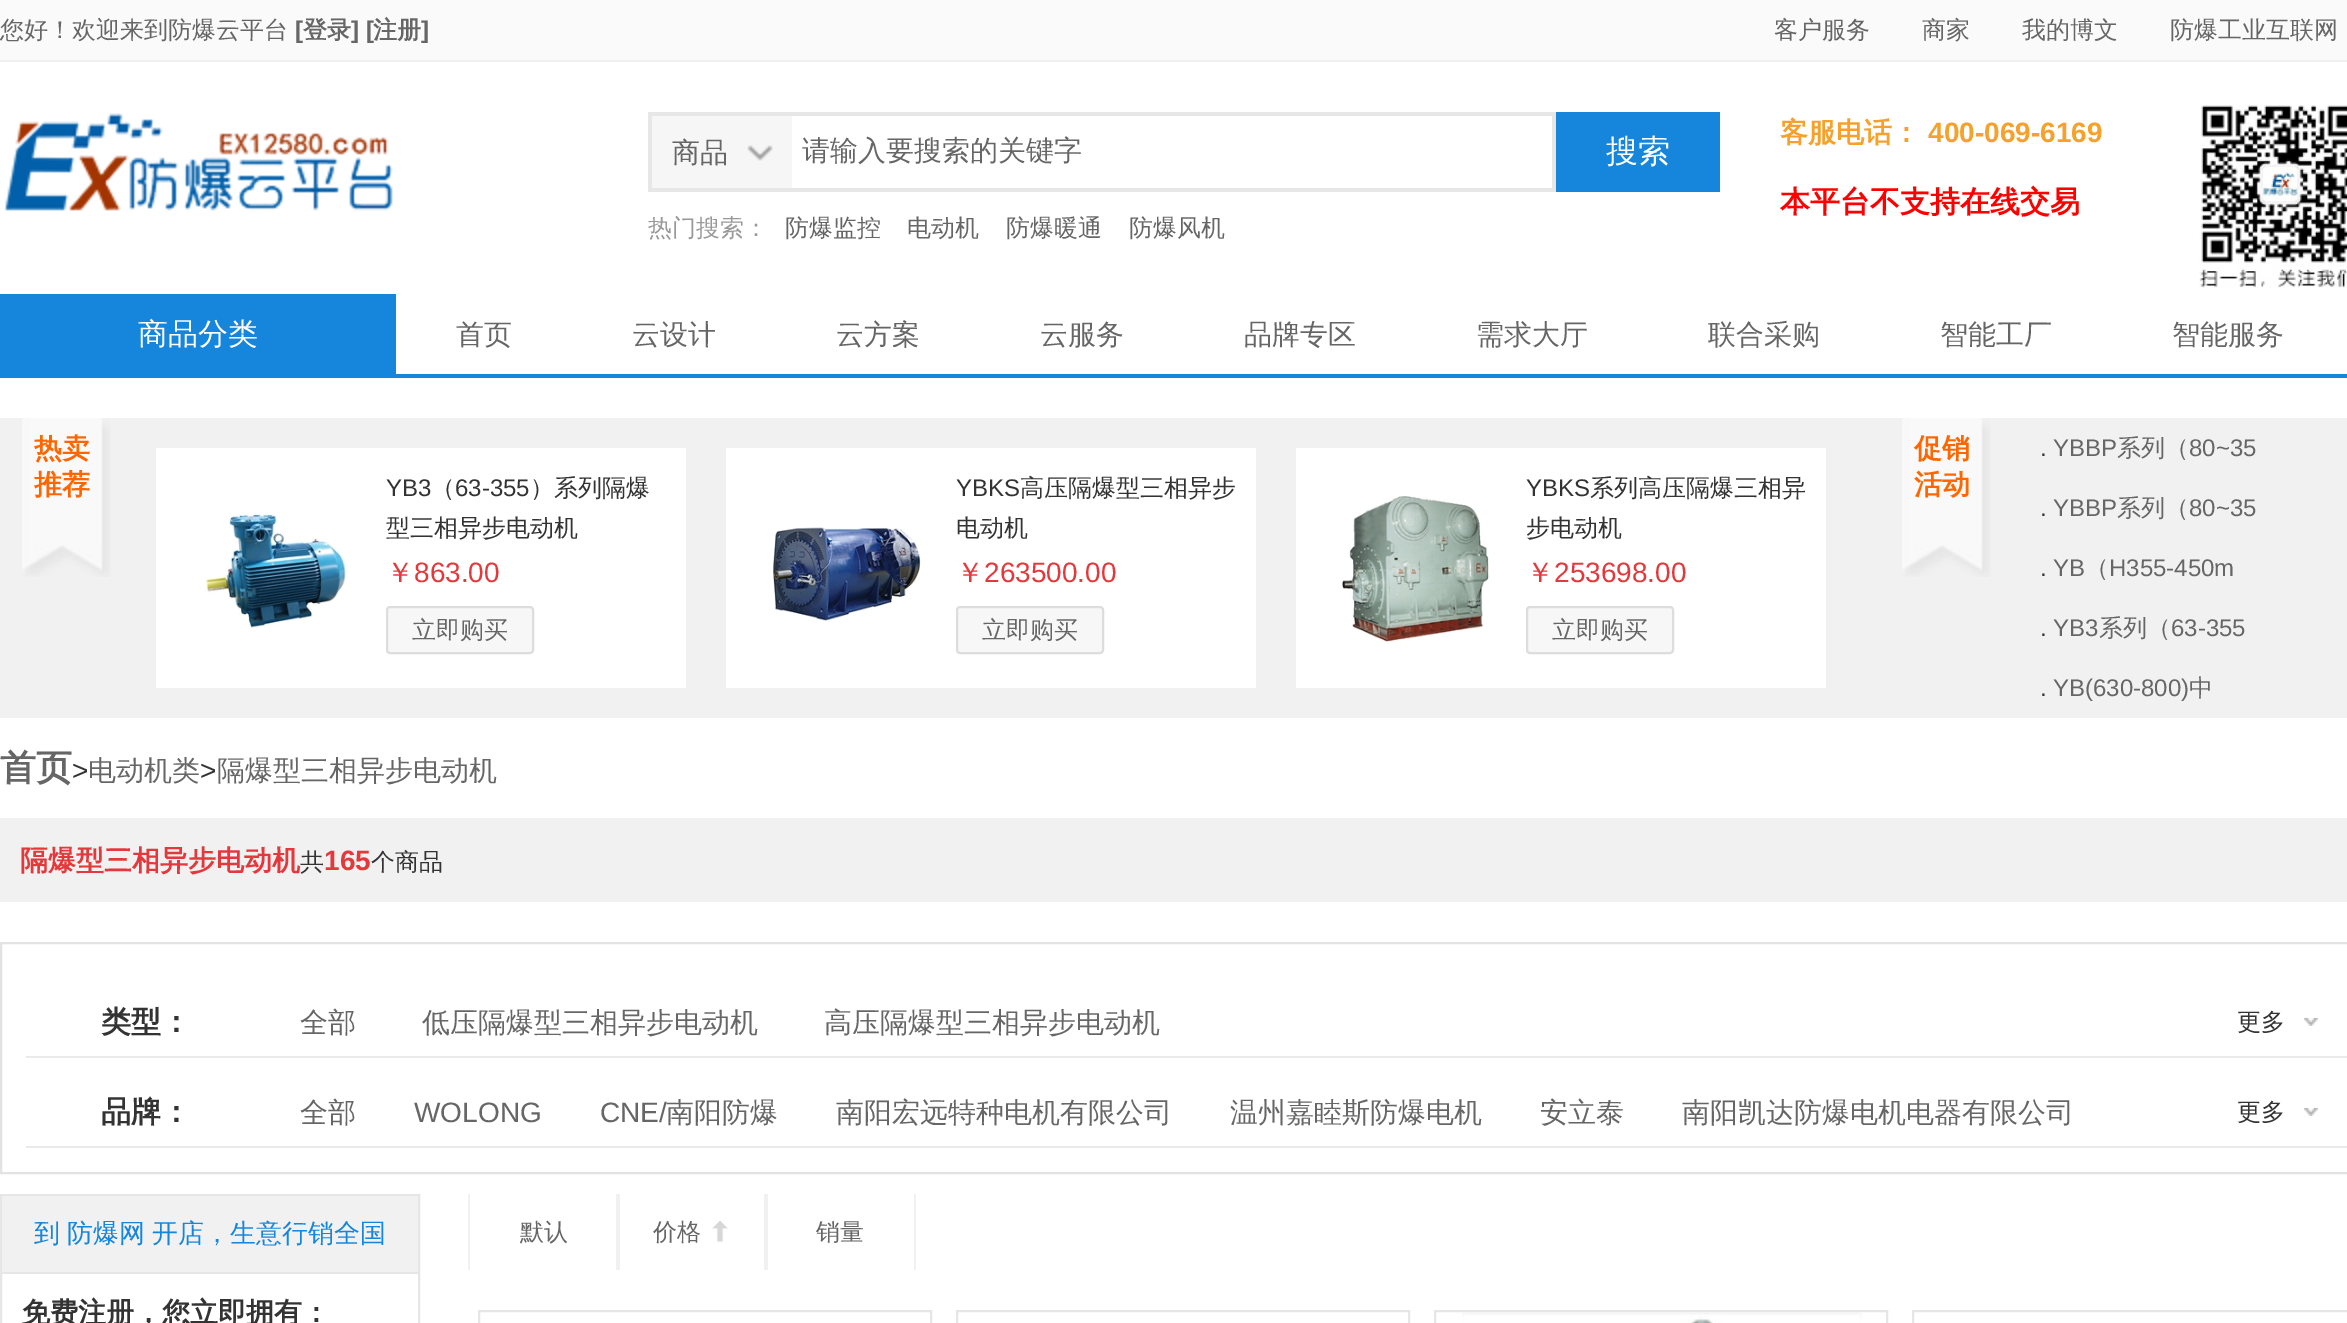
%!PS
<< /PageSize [2347 1323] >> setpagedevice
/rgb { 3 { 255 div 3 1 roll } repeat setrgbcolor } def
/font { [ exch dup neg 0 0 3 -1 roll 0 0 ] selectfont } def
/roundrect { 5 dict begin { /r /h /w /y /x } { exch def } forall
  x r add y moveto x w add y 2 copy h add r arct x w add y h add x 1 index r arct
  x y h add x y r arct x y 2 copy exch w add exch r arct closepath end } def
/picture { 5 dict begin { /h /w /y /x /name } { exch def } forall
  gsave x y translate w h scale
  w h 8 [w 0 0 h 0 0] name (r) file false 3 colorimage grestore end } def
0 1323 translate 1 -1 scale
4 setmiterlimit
255 255 255 rgb
0 0 2347 1323 rectfill
250 250 250 rgb
0 0 2347 60 rectfill
240 240 240 rgb
0 60 2347 2 rectfill
(img/1.rgb) 4 113 389 98 picture
246 246 246 rgb
652 116 140 72 rectfill
(img/2.rgb) 747 145 26 16 picture
[
  [648 112 908 4 231 231 231]
  [1552 112 4 80 231 231 231]
  [648 188 908 4 231 231 231]
  [648 112 4 80 231 231 231]
  [1556 112 164 80 21 134 219]
] { aload pop rgb rectfill } forall
(img/3.rgb) 2199 105 148 183 picture
[
  [0 374 2347 4 21 134 219]
  [0 294 396 80 21 134 219]
  [0 418 2347 300 241 241 241]
] { aload pop rgb rectfill } forall
(img/4.rgb) 22 418 89 159 picture
255 255 255 rgb
156 448 530 240 rectfill
(img/5.rgb) 205 513 141 115 picture
247 247 247 rgb
387 607 146 46 3 roundrect gsave fill grestore
221 221 221 rgb
2 setlinewidth
stroke
255 255 255 rgb
726 448 530 240 rectfill
(img/6.rgb) 773 527 148 94 picture
247 247 247 rgb
957 607 146 46 3 roundrect gsave fill grestore
221 221 221 rgb
stroke
255 255 255 rgb
1296 448 530 240 rectfill
(img/7.rgb) 1342 496 147 147 picture
247 247 247 rgb
1527 607 146 46 3 roundrect gsave fill grestore
221 221 221 rgb
stroke
(img/4.rgb) 1902 418 89 159 picture
241 241 241 rgb
0 818 2347 84 rectfill
227 227 227 rgb
1 943 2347 230 rectstroke
234 234 234 rgb
26 1056 2321 2 rectfill
(img/8.rgb) 2304 1018 14 8 picture
26 1146 2321 2 rectfill
(img/8.rgb) 2304 1108 14 8 picture
230 230 230 rgb
1 1195 418 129 rectstroke
[
  [2 1196 416 76 241 241 241]
  [2 1272 416 2 230 230 230]
  [616 1194 4 76 241 241 241]
  [468 1194 2 76 241 241 241]
  [764 1194 4 76 241 241 241]
] { aload pop rgb rectfill } forall
(img/9.rgb) 712 1220 16 22 picture
914 1194 2 76 rectfill
230 230 230 rgb
479 1311 452 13 rectstroke
254 250 252 rgb
885 1312 6 1 rectfill
230 230 230 rgb
957 1311 452 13 rectstroke
1435 1311 452 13 rectstroke
(img/10.rgb) 1462 1312 400 11 picture
1913 1311 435 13 rectstroke
/WenQuanYiZenHei-Medium 24 font
102 102 102 rgb
0 38 moveto (您好！欢迎来到防爆云平台) show
/LiberationSans-Bold 24 font
295 38 moveto ([) show
/WenQuanYiZenHei-Bold 24 font
303 38 moveto (登录) show
/LiberationSans-Bold 24 font
351 38 moveto (] [) show
/WenQuanYiZenHei-Bold 24 font
373 38 moveto (注册) show
/LiberationSans-Bold 24 font
421 38 moveto (]) show
/WenQuanYiZenHei-Medium 24 font
[
  [(客户服务) 1774 38]
  [(商家) 1922 38]
  [(我的博文) 2022 38]
  [(防爆工业互联网) 2170 38]
] { aload pop moveto show } forall
/WenQuanYiZenHei-Medium 28 font
672 162 moveto (商品) show
802 160 moveto (请输入要搜索的关键字) show
/WenQuanYiZenHei-Medium 32 font
255 255 255 rgb
1606 162 moveto (搜索) show
/WenQuanYiZenHei-Medium 24 font
153 153 153 rgb
648 236 moveto (热门搜索：) show
102 102 102 rgb
[
  [(防爆监控) 785 236]
  [(电动机) 907 236]
  [(防爆暖通) 1006 236]
  [(防爆风机) 1129 236]
] { aload pop moveto show } forall
/WenQuanYiZenHei-Bold 28 font
246 161 43 rgb
1780 142 moveto (客服电话：) show
/LiberationSans-Bold 28 font
1928 142 moveto (400-069-6169) show
/WenQuanYiZenHei-Bold 30 font
255 0 0 rgb
1780 212 moveto (本平台不支持在线交易) show
/WenQuanYiZenHei-Medium 30 font
255 255 255 rgb
138 344 moveto (商品分类) show
/WenQuanYiZenHei-Medium 28 font
102 102 102 rgb
[
  [(首页) 456 344]
  [(云设计) 632 344]
  [(云方案) 836 344]
  [(云服务) 1040 344]
  [(品牌专区) 1244 344]
  [(需求大厅) 1476 344]
  [(联合采购) 1708 344]
  [(智能工厂) 1940 344]
  [(智能服务) 2172 344]
] { aload pop moveto show } forall
/WenQuanYiZenHei-Bold 28 font
255 102 0 rgb
34 458 moveto (热卖) show
34 494 moveto (推荐) show
/LiberationSans-Regular 24 font
51 51 51 rgb
386 496 moveto (YB3) show
/WenQuanYiZenHei-Medium 24 font
431 496 moveto (（) show
/LiberationSans-Regular 24 font
455 496 moveto (63-355) show
/WenQuanYiZenHei-Medium 24 font
530 496 moveto (）系列隔爆) show
386 536 moveto (型三相异步电动机) show
/WenQuanYiZenHei-Medium 28 font
228 57 60 rgb
386 582 moveto (￥) show
/LiberationSans-Regular 28 font
414 582 moveto (863.00) show
/WenQuanYiZenHei-Medium 24 font
102 102 102 rgb
412 638 moveto (立即购买) show
/LiberationSans-Regular 24 font
51 51 51 rgb
956 496 moveto (YBKS) show
/WenQuanYiZenHei-Medium 24 font
1020 496 moveto (高压隔爆型三相异步) show
956 536 moveto (电动机) show
/WenQuanYiZenHei-Medium 28 font
228 57 60 rgb
956 582 moveto (￥) show
/LiberationSans-Regular 28 font
984 582 moveto (263500.00) show
/WenQuanYiZenHei-Medium 24 font
102 102 102 rgb
982 638 moveto (立即购买) show
/LiberationSans-Regular 24 font
51 51 51 rgb
1526 496 moveto (YBKS) show
/WenQuanYiZenHei-Medium 24 font
1590 496 moveto (系列高压隔爆三相异) show
1526 536 moveto (步电动机) show
/WenQuanYiZenHei-Medium 28 font
228 57 60 rgb
1526 582 moveto (￥) show
/LiberationSans-Regular 28 font
1554 582 moveto (253698.00) show
/WenQuanYiZenHei-Medium 24 font
102 102 102 rgb
1552 638 moveto (立即购买) show
/WenQuanYiZenHei-Bold 28 font
255 102 0 rgb
1914 458 moveto (促销) show
1914 494 moveto (活动) show
/LiberationSans-Regular 24 font
51 51 51 rgb
2040 456 moveto (.) show
102 102 102 rgb
2053 456 moveto (YBBP) show
/WenQuanYiZenHei-Medium 24 font
2117 456 moveto (系列（) show
/LiberationSans-Regular 24 font
2189 456 moveto (80~35) show
51 51 51 rgb
2040 516 moveto (.) show
102 102 102 rgb
2053 516 moveto (YBBP) show
/WenQuanYiZenHei-Medium 24 font
2117 516 moveto (系列（) show
/LiberationSans-Regular 24 font
2189 516 moveto (80~35) show
51 51 51 rgb
2040 576 moveto (.) show
102 102 102 rgb
2053 576 moveto (YB) show
/WenQuanYiZenHei-Medium 24 font
2085 576 moveto (（) show
/LiberationSans-Regular 24 font
2109 576 moveto (H355-450m) show
51 51 51 rgb
2040 636 moveto (.) show
102 102 102 rgb
2053 636 moveto (YB3) show
/WenQuanYiZenHei-Medium 24 font
2099 636 moveto (系列（) show
/LiberationSans-Regular 24 font
2171 636 moveto (63-355) show
51 51 51 rgb
2040 696 moveto (.) show
102 102 102 rgb
2053 696 moveto (YB\(630-800\)) show
/WenQuanYiZenHei-Medium 24 font
2189 696 moveto (中) show
/WenQuanYiZenHei-Bold 36 font
0 780 moveto (首页) show
/LiberationSans-Regular 28 font
51 51 51 rgb
72 780 moveto (>) show
/WenQuanYiZenHei-Medium 28 font
102 102 102 rgb
88 780 moveto (电动机类) show
/LiberationSans-Regular 28 font
51 51 51 rgb
200 780 moveto (>) show
/WenQuanYiZenHei-Medium 28 font
102 102 102 rgb
217 780 moveto (隔爆型三相异步电动机) show
/WenQuanYiZenHei-Bold 28 font
228 57 60 rgb
20 870 moveto (隔爆型三相异步电动机) show
/WenQuanYiZenHei-Medium 24 font
51 51 51 rgb
300 870 moveto (共) show
/LiberationSans-Bold 28 font
228 57 60 rgb
324 870 moveto (165) show
/WenQuanYiZenHei-Medium 24 font
51 51 51 rgb
371 870 moveto (个商品) show
/WenQuanYiZenHei-Bold 30 font
101 1032 moveto (类型：) show
/WenQuanYiZenHei-Medium 28 font
102 102 102 rgb
[
  [(全部) 300 1032]
  [(低压隔爆型三相异步电动机) 422 1032]
  [(高压隔爆型三相异步电动机) 824 1032]
] { aload pop moveto show } forall
/WenQuanYiZenHei-Medium 24 font
51 51 51 rgb
2237 1030 moveto (更多) show
/WenQuanYiZenHei-Bold 30 font
101 1122 moveto (品牌：) show
/WenQuanYiZenHei-Medium 28 font
102 102 102 rgb
300 1122 moveto (全部) show
/LiberationSans-Regular 28 font
414 1122 moveto (WOLONG) show
600 1122 moveto (CNE/) show
/WenQuanYiZenHei-Medium 28 font
[
  [(南阳防爆) 666 1122]
  [(南阳宏远特种电机有限公司) 836 1122]
  [(温州嘉睦斯防爆电机) 1230 1122]
  [(安立泰) 1540 1122]
  [(南阳凯达防爆电机电器有限公司) 1682 1122]
] { aload pop moveto show } forall
/WenQuanYiZenHei-Medium 24 font
51 51 51 rgb
2237 1120 moveto (更多) show
/WenQuanYiZenHei-Medium 26 font
21 134 219 rgb
34 1242 moveto -1 0 32 (到 防爆网 开店，生意行销全国) widthshow
/WenQuanYiZenHei-Bold 28 font
51 51 51 rgb
22 1322 moveto (免费注册，您立即拥有：) show
/WenQuanYiZenHei-Medium 24 font
102 102 102 rgb
[
  [(默认) 520 1240]
  [(价格) 653 1240]
  [(销量) 816 1240]
] { aload pop moveto show } forall
showpage
